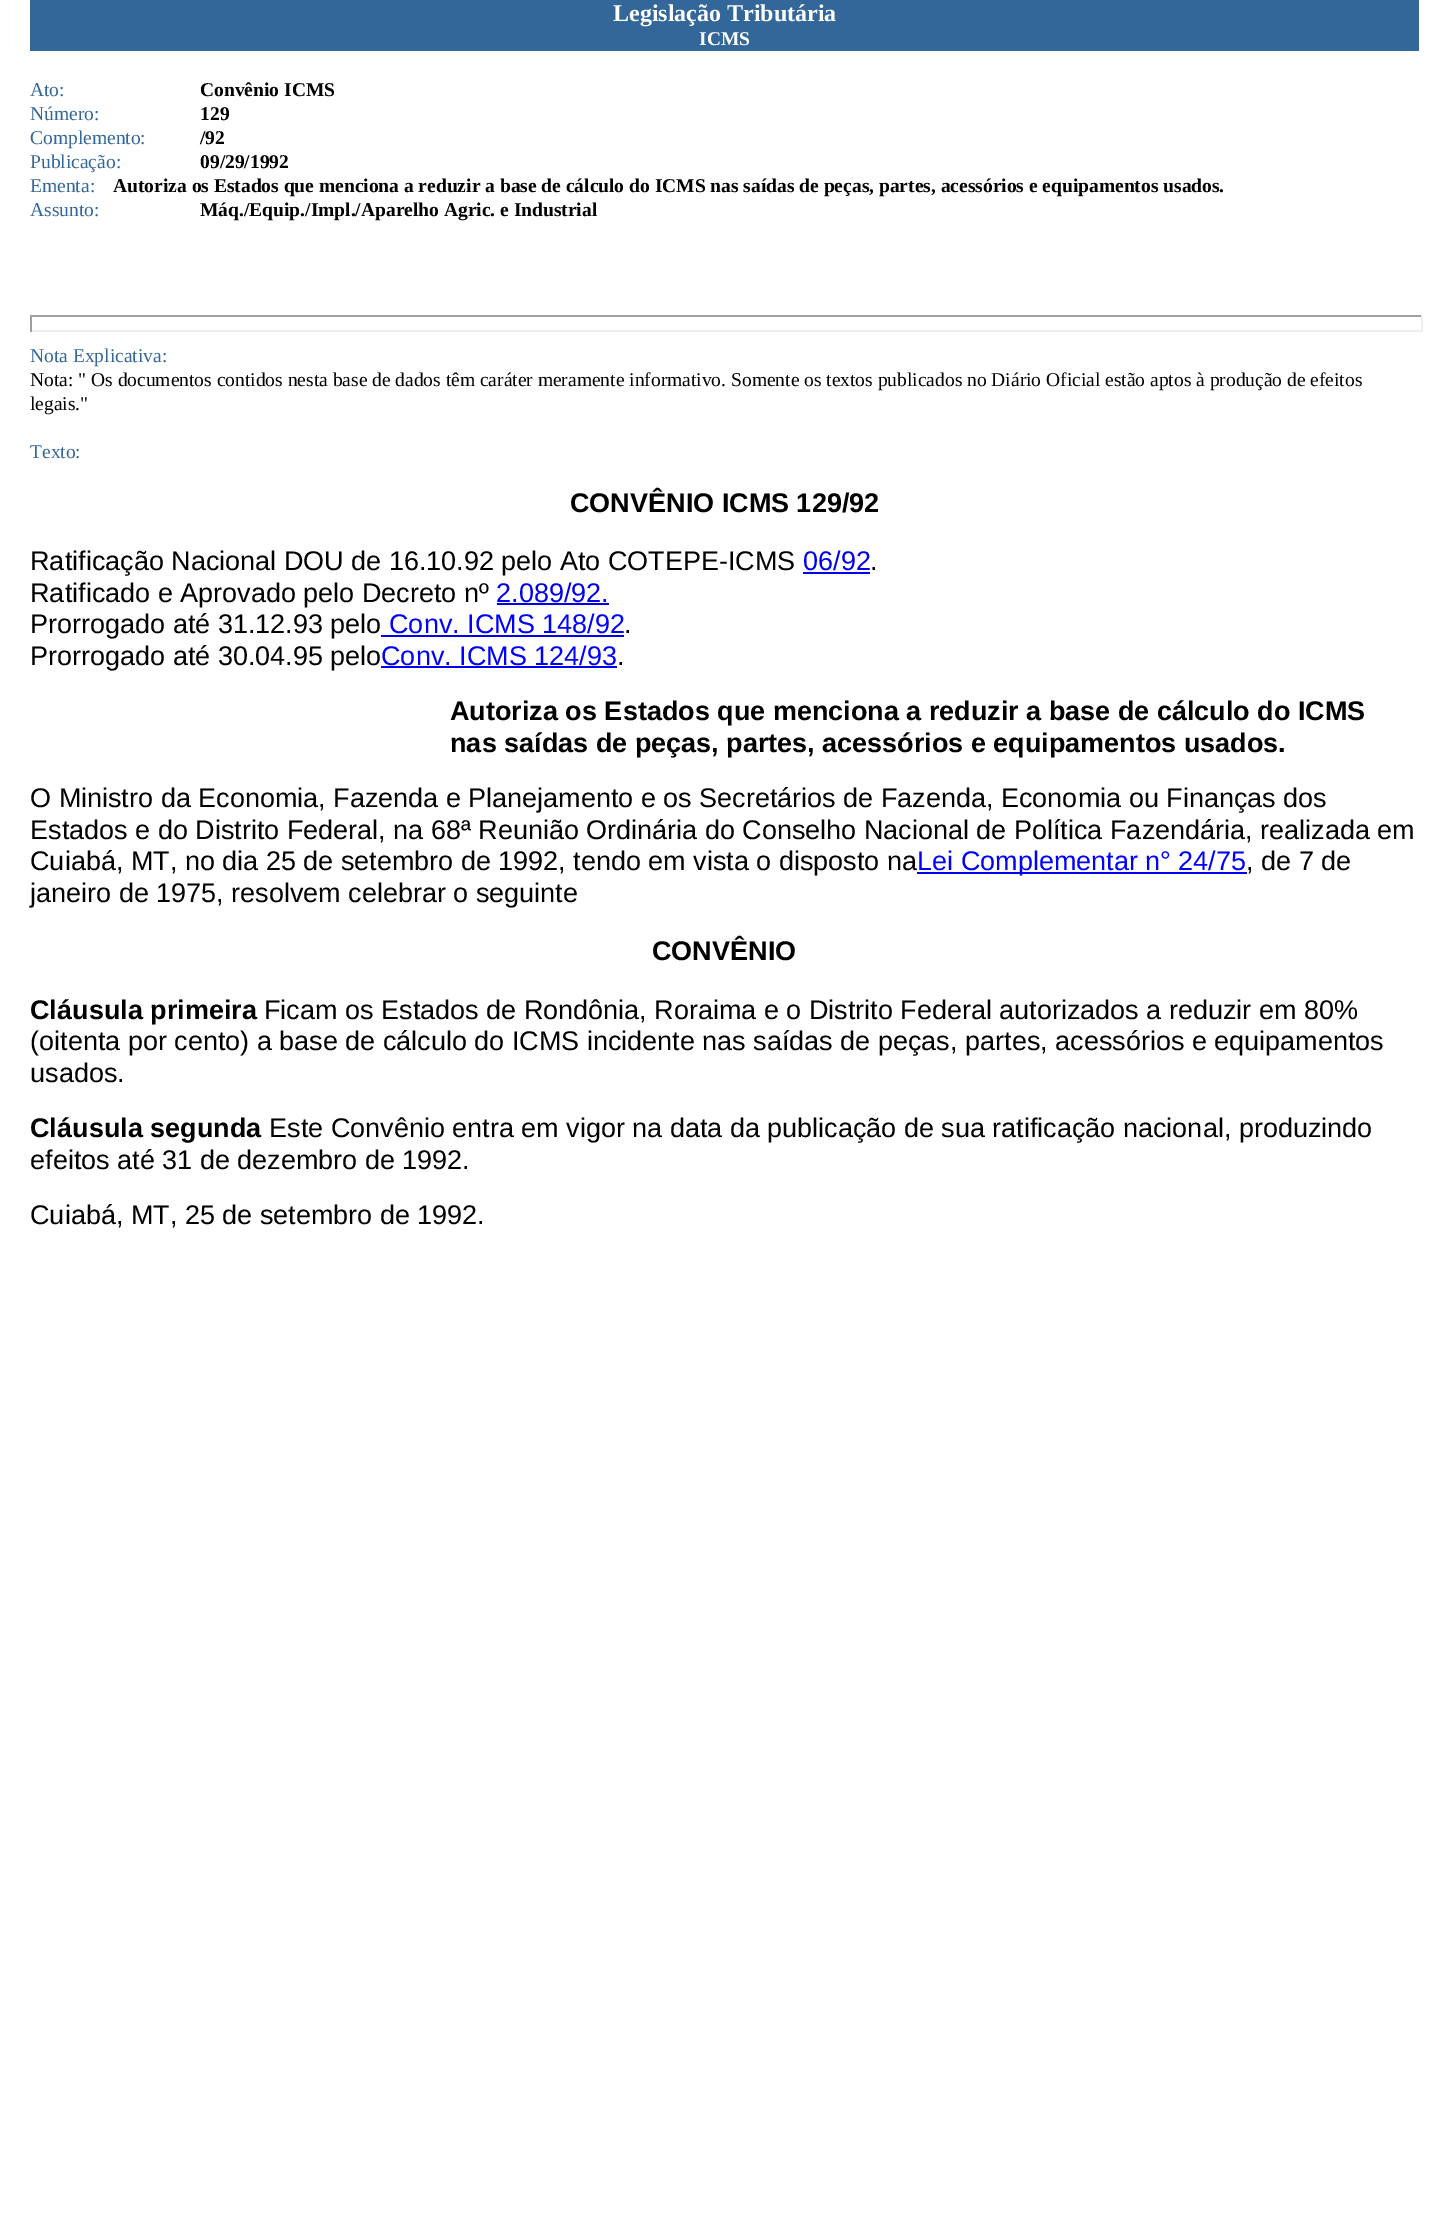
%!PS
<< /PageSize [1449 2223] >> setpagedevice
/rgb { 3 { 255 div 3 1 roll } repeat setrgbcolor } def
/font { [ exch dup neg 0 0 3 -1 roll 0 0 ] selectfont } def
0 2223 translate 1 -1 scale
4 setmiterlimit
255 255 255 rgb
0 0 1449 2223 rectfill
[
  [30 0 1389 51 51 102 153]
  [30 315 1392 2 159 159 159]
  [1421 315 2 17 238 238 238]
  [30 330 1392 2 238 238 238]
  [30 315 2 17 159 159 159]
  [803 572 67 2 0 0 238]
  [497 603 112 2 0 0 238]
  [381 635 243 2 0 0 238]
  [381 666 236 2 0 0 238]
] { aload pop rgb rectfill } forall
/LiberationSerif-Bold 24 font
255 255 255 rgb
613 21 moveto (Legislação Tributária) show
/LiberationSerif-Bold 19.5 font
699 45 moveto (ICMS) show
/LiberationSerif-Regular 19.5 font
51 102 153 rgb
30 96 moveto (Ato:) show
/LiberationSerif-Bold 19.5 font
0 0 0 rgb
200 96 moveto (Convênio ICMS) show
/LiberationSerif-Regular 19.5 font
51 102 153 rgb
30 120 moveto (Número:) show
/LiberationSerif-Bold 19.5 font
0 0 0 rgb
200 120 moveto (129) show
/LiberationSerif-Regular 19.5 font
51 102 153 rgb
30 144 moveto (Complemento:) show
/LiberationSerif-Bold 19.5 font
0 0 0 rgb
200 144 moveto (/92) show
/LiberationSerif-Regular 19.5 font
51 102 153 rgb
30 168 moveto (Publicação:) show
/LiberationSerif-Bold 19.5 font
0 0 0 rgb
200 168 moveto (09/29/1992) show
/LiberationSerif-Regular 19.5 font
51 102 153 rgb
30 192 moveto (Ementa:) show
/LiberationSerif-Bold 19.5 font
0 0 0 rgb
113 192 moveto (Autoriza os Estados que menciona a reduzir a base de cálculo do ICMS nas saídas de peças, partes, acessórios e equipamentos usados.) show
/LiberationSerif-Regular 19.5 font
51 102 153 rgb
30 216 moveto (Assunto:) show
/LiberationSerif-Bold 19.5 font
0 0 0 rgb
200 216 moveto (Máq./Equip./Impl./Aparelho Agric. e Industrial) show
/LiberationSerif-Regular 19.5 font
51 102 153 rgb
30 362 moveto (Nota Explicativa:) show
0 0 0 rgb
30 386 moveto (Nota: " Os documentos contidos nesta base de dados têm caráter meramente informativo. Somente os textos publicados no Diário Oficial estão aptos à produção de efeitos) show
30 410 moveto (legais.") show
51 102 153 rgb
30 458 moveto (Texto:) show
/LiberationSans-Bold 27 font
0 0 0 rgb
570 512 moveto (CONVÊNIO ICMS 129/92) show
/LiberationSans-Regular 27 font
30 570 moveto (Ratificação Nacional DOU de 16.10.92 pelo Ato COTEPE-ICMS) show
0 0 238 rgb
803 570 moveto (06/92) show
0 0 0 rgb
870 570 moveto (.) show
30 602 moveto (Ratificado e Aprovado pelo Decreto nº) show
0 0 238 rgb
496 602 moveto (2.089/92.) show
0 0 0 rgb
30 633 moveto (Prorrogado até 31.12.93 pelo) show
0 0 255 rgb
389 633 moveto (Conv. ICMS 148/92) show
0 0 0 rgb
624 633 moveto (.) show
30 665 moveto (Prorrogado até 30.04.95 pelo) show
0 0 255 rgb
381 665 moveto (Conv. ICMS 124/93) show
0 0 0 rgb
617 665 moveto (.) show
/LiberationSans-Bold 27 font
450 720 moveto (Autoriza os Estados que menciona a reduzir a base de cálculo do ICMS) show
450 752 moveto (nas saídas de peças, partes, acessórios e equipamentos usados.) show
/LiberationSans-Regular 27 font
[
  [(O Ministro da Economia, Fazenda e Planejamento e os Secretários de Fazenda, Economia ou Finanças dos) 30 807]
  [(Estados e do Distrito Federal, na 68ª Reunião Ordinária do Conselho Nacional de Política Fazendária, realizada em) 30 839]
  [(Cuiabá, MT, no dia 25 de setembro de 1992, tendo em vista o disposto na) 30 870]
] { aload pop moveto show } forall
0 0 238 rgb
917 872 330 2 rectfill
0 0 255 rgb
917 870 moveto (Lei Complementar n° 24/75) show
0 0 0 rgb
1246 870 moveto (, de 7 de) show
30 902 moveto (janeiro de 1975, resolvem celebrar o seguinte) show
/LiberationSans-Bold 27 font
652 960 moveto (CONVÊNIO) show
30 1019 moveto (Cláusula primeira) show
/LiberationSans-Regular 27 font
[
  [(Ficam os Estados de Rondônia, Roraima e o Distrito Federal autorizados a reduzir em 80%) 264 1019]
  [(\(oitenta por cento\) a base de cálculo do ICMS incidente nas saídas de peças, partes, acessórios e equipamentos) 30 1050]
  [(usados.) 30 1082]
] { aload pop moveto show } forall
/LiberationSans-Bold 27 font
30 1137 moveto (Cláusula segunda) show
/LiberationSans-Regular 27 font
[
  [(Este Convênio entra em vigor na data da publicação de sua ratificação nacional, produzindo) 269 1137]
  [(efeitos até 31 de dezembro de 1992.) 30 1169]
  [(Cuiabá, MT, 25 de setembro de 1992.) 30 1224]
] { aload pop moveto show } forall
showpage
